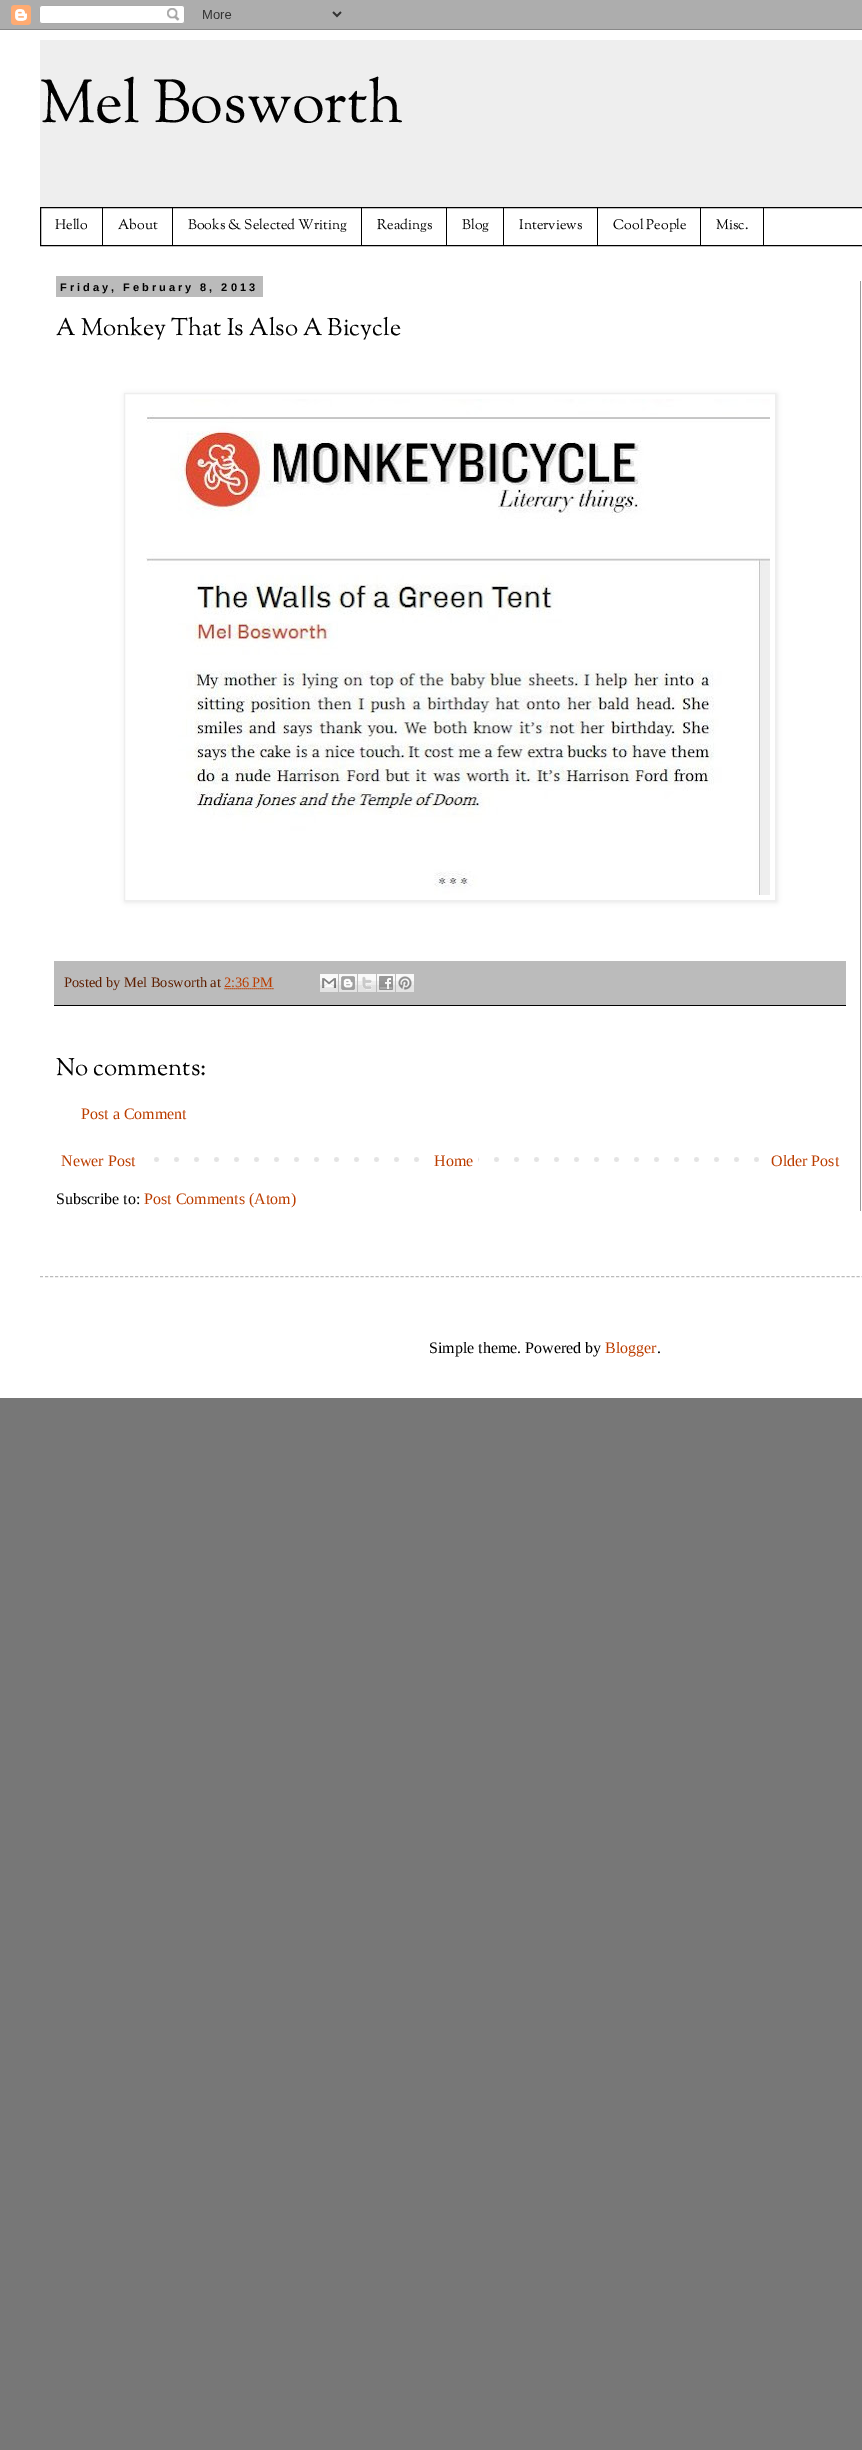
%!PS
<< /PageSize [862 2450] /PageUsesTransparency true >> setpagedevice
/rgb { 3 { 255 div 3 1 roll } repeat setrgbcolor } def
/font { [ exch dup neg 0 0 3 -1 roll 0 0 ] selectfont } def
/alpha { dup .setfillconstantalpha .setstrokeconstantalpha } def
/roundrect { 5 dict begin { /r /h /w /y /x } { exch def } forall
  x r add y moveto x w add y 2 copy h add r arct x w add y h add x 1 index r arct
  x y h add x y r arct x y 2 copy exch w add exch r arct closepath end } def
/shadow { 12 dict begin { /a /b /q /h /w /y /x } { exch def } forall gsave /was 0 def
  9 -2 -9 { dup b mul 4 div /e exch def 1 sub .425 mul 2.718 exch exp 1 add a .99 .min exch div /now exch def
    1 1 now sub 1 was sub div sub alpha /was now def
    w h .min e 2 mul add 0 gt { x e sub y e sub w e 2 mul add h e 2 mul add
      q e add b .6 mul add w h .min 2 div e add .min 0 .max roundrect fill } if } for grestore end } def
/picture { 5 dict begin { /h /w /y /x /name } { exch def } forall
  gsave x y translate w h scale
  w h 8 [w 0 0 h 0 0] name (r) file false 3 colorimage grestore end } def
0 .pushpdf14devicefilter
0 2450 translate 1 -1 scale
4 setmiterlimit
119 119 119 rgb
0 0 862 2450 rectfill
(img/1.rgb) 0 0 862 30 picture
255 255 255 rgb
0 30 862 1368 rectfill
238 238 238 rgb
40 40 822 167 rectfill
0 0 0 rgb
40.5 207.5 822 38 rectstroke
[
  [102 208 1 37 0 0 0]
  [172 208 1 37 0 0 0]
  [361 208 1 37 0 0 0]
  [446 208 1 37 0 0 0]
  [503 208 1 37 0 0 0]
  [597 208 1 37 0 0 0]
  [700 208 1 37 0 0 0]
  [763 208 1 37 0 0 0]
  [56 276 207 21 187 187 187]
] { aload pop rgb rectfill } forall
gsave
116 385 moveto 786 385 lineto 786 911 lineto 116 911 lineto closepath 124 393 moveto 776 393 lineto 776 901 lineto 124 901 lineto closepath eoclip newpath
0 0 0 rgb
125 394 652 508 0 2.5 0.1 shadow
grestore
238 238 238 rgb
124.5 393.5 651 507 rectstroke
(img/2.rgb) 146 399 624 496 picture
187 187 187 rgb
54 961 792 44 rectfill
0 0 0 rgb
54 1005 792 1 rectfill
187 61 0 rgb
[1 1] 0 setdash
224.5 988.5 moveto 273.5 988.5 lineto stroke
(img/3.rgb) 320 974 18 18 picture
(img/4.rgb) 339 974 18 18 picture
(img/5.rgb) 358 974 18 18 picture
(img/6.rgb) 377 974 18 18 picture
(img/7.rgb) 396 974 18 18 picture
(img/8.rgb) 154 1157 605 5 picture
255 255 255 rgb
434 1157 44 5 rectfill
153 153 153 rgb
860 281 1 930 rectfill
187 187 187 rgb
[3 2.01] 0 setdash
40 1276.5 moveto 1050 1276.5 lineto stroke
/OFLSortsMillGoudyTT-Medium 60 font
0 0 0 rgb
40 122 moveto (Mel Bosworth) show
/OFLSortsMillGoudyTT-Medium 14 font
[
  [(Hello) 55 229]
  [(About) 118 229]
  [(Books & Selected Writing) 188 229]
  [(Readings) 377 229]
  [(Blog) 462 229]
  [(Interviews) 519 229]
  [(Cool People) 613 229]
  [(Misc.) 716 229]
] { aload pop moveto show } forall
/LiberationSans-Bold 11 font
60 291 moveto 3 0 (Friday, February 8, 2013) ashow
/OFLSortsMillGoudyTT-Medium 24 font
56 335 moveto (A Monkey That Is Also A Bicycle) show
/LiberationSerif-Regular 14.4 font
93 30 0 rgb
64 987 moveto (Posted by Mel Bosworth at) show
187 61 0 rgb
224 987 moveto (2:36 PM) show
/OFLSortsMillGoudyTT-Medium 24 font
0 0 0 rgb
56 1075 moveto (No comments:) show
/LiberationSerif-Regular 16 font
187 61 0 rgb
[
  [(Post a Comment) 81 1119]
  [(Newer Post) 61 1166]
  [(Home) 434 1166]
  [(Older Post) 771 1166]
] { aload pop moveto show } forall
0 0 0 rgb
56 1204 moveto (Subscribe to:) show
187 61 0 rgb
144 1204 moveto (Post Comments \(Atom\)) show
0 0 0 rgb
429 1353 moveto (Simple theme. Powered by) show
187 61 0 rgb
605 1353 moveto (Blogger) show
0 0 0 rgb
657 1353 moveto (.) show
.poppdf14devicefilter showpage
